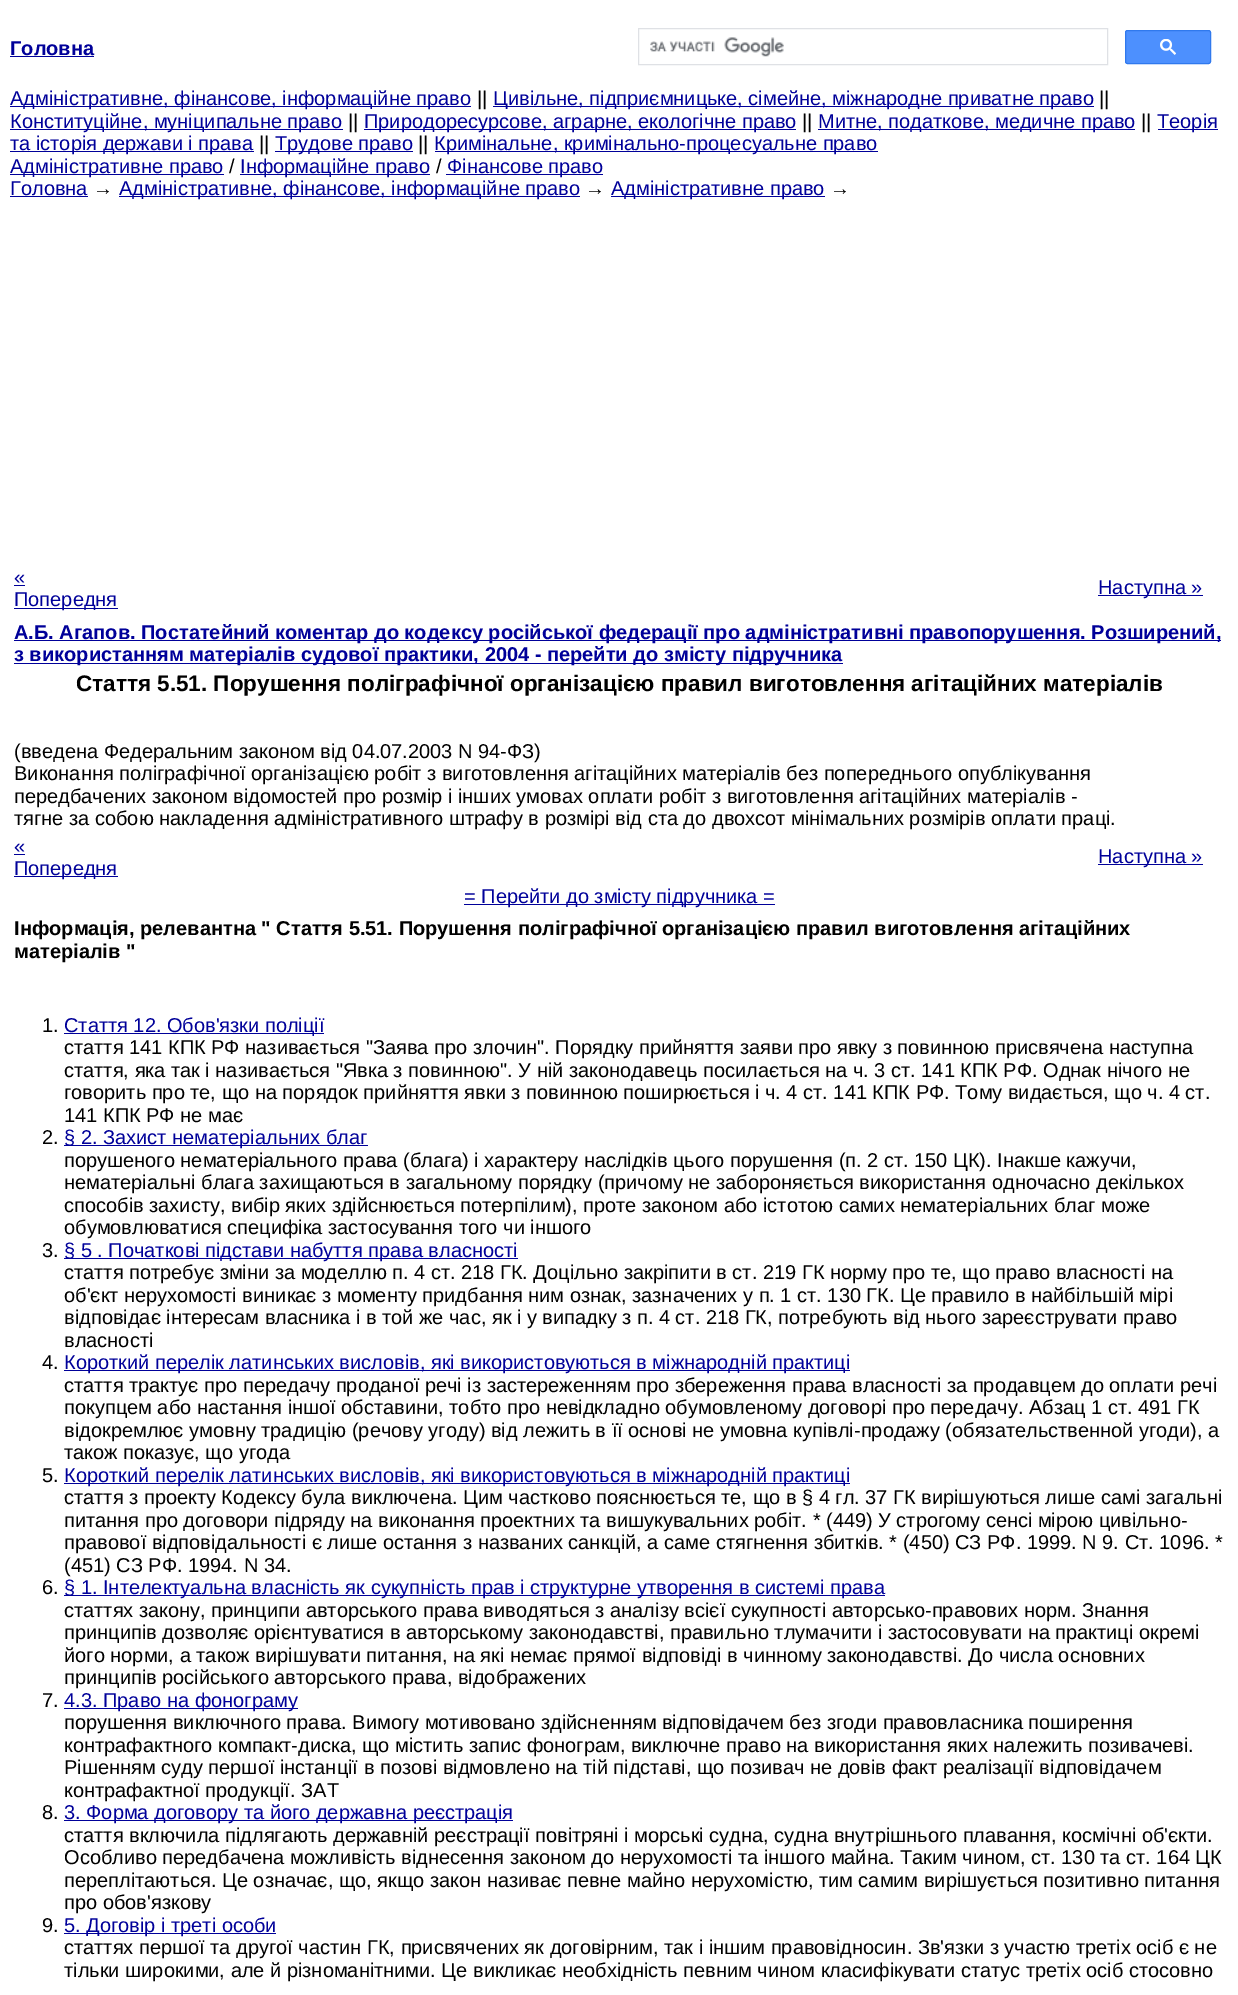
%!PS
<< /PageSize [1238 1995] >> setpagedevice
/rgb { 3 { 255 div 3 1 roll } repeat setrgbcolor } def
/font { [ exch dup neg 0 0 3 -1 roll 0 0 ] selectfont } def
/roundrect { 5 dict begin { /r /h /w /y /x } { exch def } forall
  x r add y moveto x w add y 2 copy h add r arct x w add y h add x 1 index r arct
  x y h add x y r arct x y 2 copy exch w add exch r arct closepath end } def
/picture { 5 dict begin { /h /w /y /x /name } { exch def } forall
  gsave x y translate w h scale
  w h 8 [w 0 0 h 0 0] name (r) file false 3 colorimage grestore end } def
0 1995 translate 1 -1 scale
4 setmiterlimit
255 255 255 rgb
0 0 1238 1995 rectfill
0 0 153 rgb
10 56 84 1 rectfill
223 225 229 rgb
638.5 28.5 469 36 rectstroke
(img/1.rgb) 650 37 134 20 picture
77 144 254 rgb
1125.5 30.5 85 33 2 roundrect gsave fill grestore
48 121 237 rgb
stroke
(img/2.rgb) 1160 39 16 16 picture
[
  [10 106 461 1 0 0 153]
  [493 106 601 1 0 0 153]
  [10 129 333 1 0 0 153]
  [364 129 432 1 0 0 153]
  [818 129 317 1 0 0 153]
  [1158 129 60 1 0 0 153]
  [10 151 244 1 0 0 153]
  [275 151 138 1 0 0 153]
  [435 151 443 1 0 0 153]
  [10 174 214 1 0 0 153]
  [240 174 190 1 0 0 153]
  [446 174 157 1 0 0 153]
  [10 196 78 1 0 0 153]
  [119 196 461 1 0 0 153]
  [611 196 214 1 0 0 153]
  [14 585 11 1 0 0 153]
  [14 608 104 1 0 0 153]
  [1098 595 105 1 0 0 153]
  [14 640 1207 1 0 0 153]
  [14 663 829 1 0 0 153]
  [14 854 11 1 0 0 153]
  [14 876 104 1 0 0 153]
  [1098 864 105 1 0 0 153]
  [464 904 311 1 0 0 153]
  [64 1033 260 1 0 0 153]
  [64 1145 304 1 0 0 153]
  [64 1258 454 1 0 0 153]
  [64 1370 786 1 0 0 153]
  [64 1483 786 1 0 0 153]
  [64 1595 821 1 0 0 153]
  [64 1708 234 1 0 0 153]
  [64 1820 449 1 0 0 153]
  [64 1933 212 1 0 0 153]
] { aload pop rgb rectfill } forall
/LiberationSans-Bold 20 font
10 55 moveto (Головна) show
/LiberationSans-Regular 20 font
10 105 moveto (Адміністративне, фінансове, інформаційне право) show
0 0 0 rgb
477 105 moveto (||) show
0 0 153 rgb
493 105 moveto (Цивільне, підприємницьке, сімейне, міжнародне приватне право) show
0 0 0 rgb
1099 105 moveto (||) show
0 0 153 rgb
10 128 moveto (Конституційне, муніципальне право) show
0 0 0 rgb
348 128 moveto (||) show
0 0 153 rgb
364 128 moveto (Природоресурсове, аграрне, екологічне право) show
0 0 0 rgb
802 128 moveto (||) show
0 0 153 rgb
818 128 moveto (Митне, податкове, медичне право) show
0 0 0 rgb
1141 128 moveto (||) show
0 0 153 rgb
1157 128 moveto (Теорія) show
10 150 moveto (та історія держави і права) show
0 0 0 rgb
259 150 moveto (||) show
0 0 153 rgb
275 150 moveto (Трудове право) show
0 0 0 rgb
418 150 moveto (||) show
0 0 153 rgb
434 150 moveto (Кримінальне, кримінально-процесуальне право) show
10 173 moveto (Адміністративне право) show
0 0 0 rgb
229 173 moveto (/) show
0 0 153 rgb
240 173 moveto (Інформаційне право) show
0 0 0 rgb
436 173 moveto (/) show
0 0 153 rgb
447 173 moveto (Фінансове право) show
10 195 moveto (Головна) show
0 0 0 rgb
93 195 moveto (→) show
0 0 153 rgb
119 195 moveto (Адміністративне, фінансове, інформаційне право) show
0 0 0 rgb
585 195 moveto (→) show
0 0 153 rgb
611 195 moveto (Адміністративне право) show
0 0 0 rgb
830 195 moveto (→) show
0 0 153 rgb
[
  [(«) 14 584]
  [(Попередня) 14 606]
  [(Наступна ») 1098 594]
] { aload pop moveto show } forall
/LiberationSans-Bold 20 font
14 639 moveto (А.Б. Агапов. Постатейний коментар до кодексу російської федерації про адміністративні правопорушення. Розширений,) show
14 661 moveto (з використанням матеріалів судової практики, 2004 - перейти до змісту підручника) show
/LiberationSans-Bold 22.5 font
0 0 0 rgb
76 691 moveto (Стаття 5.51. Порушення поліграфічної організацією правил виготовлення агітаційних матеріалів) show
/LiberationSans-Regular 20 font
[
  [(\(введена Федеральним законом від 04.07.2003 N 94-ФЗ\)) 14 758]
  [(Виконання поліграфічної організацією робіт з виготовлення агітаційних матеріалів без попереднього опублікування) 14 780]
  [(передбачених законом відомостей про розмір і інших умовах оплати робіт з виготовлення агітаційних матеріалів -) 14 803]
  [(тягне за собою накладення адміністративного штрафу в розмірі від ста до двохсот мінімальних розмірів оплати праці.) 14 825]
] { aload pop moveto show } forall
0 0 153 rgb
[
  [(«) 14 853]
  [(Попередня) 14 875]
  [(Наступна ») 1098 863]
  [(= Перейти до змісту підручника =) 464 903]
] { aload pop moveto show } forall
/LiberationSans-Bold 20 font
0 0 0 rgb
14 935 moveto (Інформація, релевантна " Стаття 5.51. Порушення поліграфічної організацією правил виготовлення агітаційних) show
14 958 moveto (матеріалів ") show
/LiberationSans-Regular 20 font
42 1032 moveto (1.) show
0 0 153 rgb
64 1032 moveto (Стаття 12. Обов'язки поліції) show
0 0 0 rgb
[
  [(стаття 141 КПК РФ називається "Заява про злочин". Порядку прийняття заяви про явку з повинною присвячена наступна) 64 1054]
  [(стаття, яка так і називається "Явка з повинною". У ній законодавець посилається на ч. 3 ст. 141 КПК РФ. Однак нічого не) 64 1077]
  [(говорить про те, що на порядок прийняття явки з повинною поширюється і ч. 4 ст. 141 КПК РФ. Тому видається, що ч. 4 ст.) 64 1099]
  [(141 КПК РФ не має) 64 1122]
  [(2.) 42 1144]
] { aload pop moveto show } forall
0 0 153 rgb
64 1144 moveto (§ 2. Захист нематеріальних благ) show
0 0 0 rgb
[
  [(порушеного нематеріального права \(блага\) і характеру наслідків цього порушення \(п. 2 ст. 150 ЦК\). Інакше кажучи,) 64 1167]
  [(нематеріальні блага захищаються в загальному порядку \(причому не забороняється використання одночасно декількох) 64 1189]
  [(способів захисту, вибір яких здійснюється потерпілим\), проте законом або істотою самих нематеріальних благ може) 64 1212]
  [(обумовлюватися специфіка застосування того чи іншого) 64 1234]
  [(3.) 42 1257]
] { aload pop moveto show } forall
0 0 153 rgb
64 1257 moveto (§ 5 . Початкові підстави набуття права власності) show
0 0 0 rgb
[
  [(стаття потребує зміни за моделлю п. 4 ст. 218 ГК. Доцільно закріпити в ст. 219 ГК норму про те, що право власності на) 64 1279]
  [(об'єкт нерухомості виникає з моменту придбання ним ознак, зазначених у п. 1 ст. 130 ГК. Це правило в найбільшій мірі) 64 1302]
  [(відповідає інтересам власника і в той же час, як і у випадку з п. 4 ст. 218 ГК, потребують від нього зареєструвати право) 64 1324]
  [(власності) 64 1347]
  [(4.) 42 1369]
] { aload pop moveto show } forall
0 0 153 rgb
64 1369 moveto (Короткий перелік латинських висловів, які використовуються в міжнародній практиці) show
0 0 0 rgb
[
  [(стаття трактує про передачу проданої речі із застереженням про збереження права власності за продавцем до оплати речі) 64 1392]
  [(покупцем або настання іншої обставини, тобто про невідкладно обумовленому договорі про передачу. Абзац 1 ст. 491 ГК) 64 1414]
  [(відокремлює умовну традицію \(речову угоду\) від лежить в її основі не умовна купівлі-продажу \(обязательственной угоди\), а) 64 1437]
  [(також показує, що угода) 64 1459]
  [(5.) 42 1482]
] { aload pop moveto show } forall
0 0 153 rgb
64 1482 moveto (Короткий перелік латинських висловів, які використовуються в міжнародній практиці) show
0 0 0 rgb
[
  [(стаття з проекту Кодексу була виключена. Цим частково пояснюється те, що в § 4 гл. 37 ГК вирішуються лише самі загальні) 64 1504]
  [(питання про договори підряду на виконання проектних та вишукувальних робіт. * \(449\) У строгому сенсі мірою цивільно-) 64 1527]
  [(правової відповідальності є лише остання з названих санкцій, а саме стягнення збитків. * \(450\) СЗ РФ. 1999. N 9. Ст. 1096. *) 64 1549]
  [(\(451\) СЗ РФ. 1994. N 34.) 64 1572]
  [(6.) 42 1594]
] { aload pop moveto show } forall
0 0 153 rgb
64 1594 moveto (§ 1. Інтелектуальна власність як сукупність прав і структурне утворення в системі права) show
0 0 0 rgb
[
  [(статтях закону, принципи авторського права виводяться з аналізу всієї сукупності авторсько-правових норм. Знання) 64 1617]
  [(принципів дозволяє орієнтуватися в авторському законодавстві, правильно тлумачити і застосовувати на практиці окремі) 64 1639]
  [(його норми, а також вирішувати питання, на які немає прямої відповіді в чинному законодавстві. До числа основних) 64 1662]
  [(принципів російського авторського права, відображених) 64 1684]
  [(7.) 42 1707]
] { aload pop moveto show } forall
0 0 153 rgb
64 1707 moveto (4.3. Право на фонограму) show
0 0 0 rgb
[
  [(порушення виключного права. Вимогу мотивовано здійсненням відповідачем без згоди правовласника поширення) 64 1729]
  [(контрафактного компакт-диска, що містить запис фонограм, виключне право на використання яких належить позивачеві.) 64 1752]
  [(Рішенням суду першої інстанції в позові відмовлено на тій підставі, що позивач не довів факт реалізації відповідачем) 64 1774]
  [(контрафактної продукції. ЗАТ) 64 1797]
  [(8.) 42 1819]
] { aload pop moveto show } forall
0 0 153 rgb
64 1819 moveto (3. Форма договору та його державна реєстрація) show
0 0 0 rgb
[
  [(стаття включила підлягають державній реєстрації повітряні і морські судна, судна внутрішнього плавання, космічні об'єкти.) 64 1842]
  [(Особливо передбачена можливість віднесення законом до нерухомості та іншого майна. Таким чином, ст. 130 та ст. 164 ЦК) 64 1864]
  [(переплітаються. Це означає, що, якщо закон називає певне майно нерухомістю, тим самим вирішується позитивно питання) 64 1887]
  [(про обов'язкову) 64 1909]
  [(9.) 42 1932]
] { aload pop moveto show } forall
0 0 153 rgb
64 1932 moveto (5. Договір і треті особи) show
0 0 0 rgb
64 1954 moveto (статтях першої та другої частин ГК, присвячених як договірним, так і іншим правовідносин. Зв'язки з участю третіх осіб є не) show
64 1977 moveto (тільки широкими, але й різноманітними. Це викликає необхідність певним чином класифікувати статус третіх осіб стосовно) show
showpage
